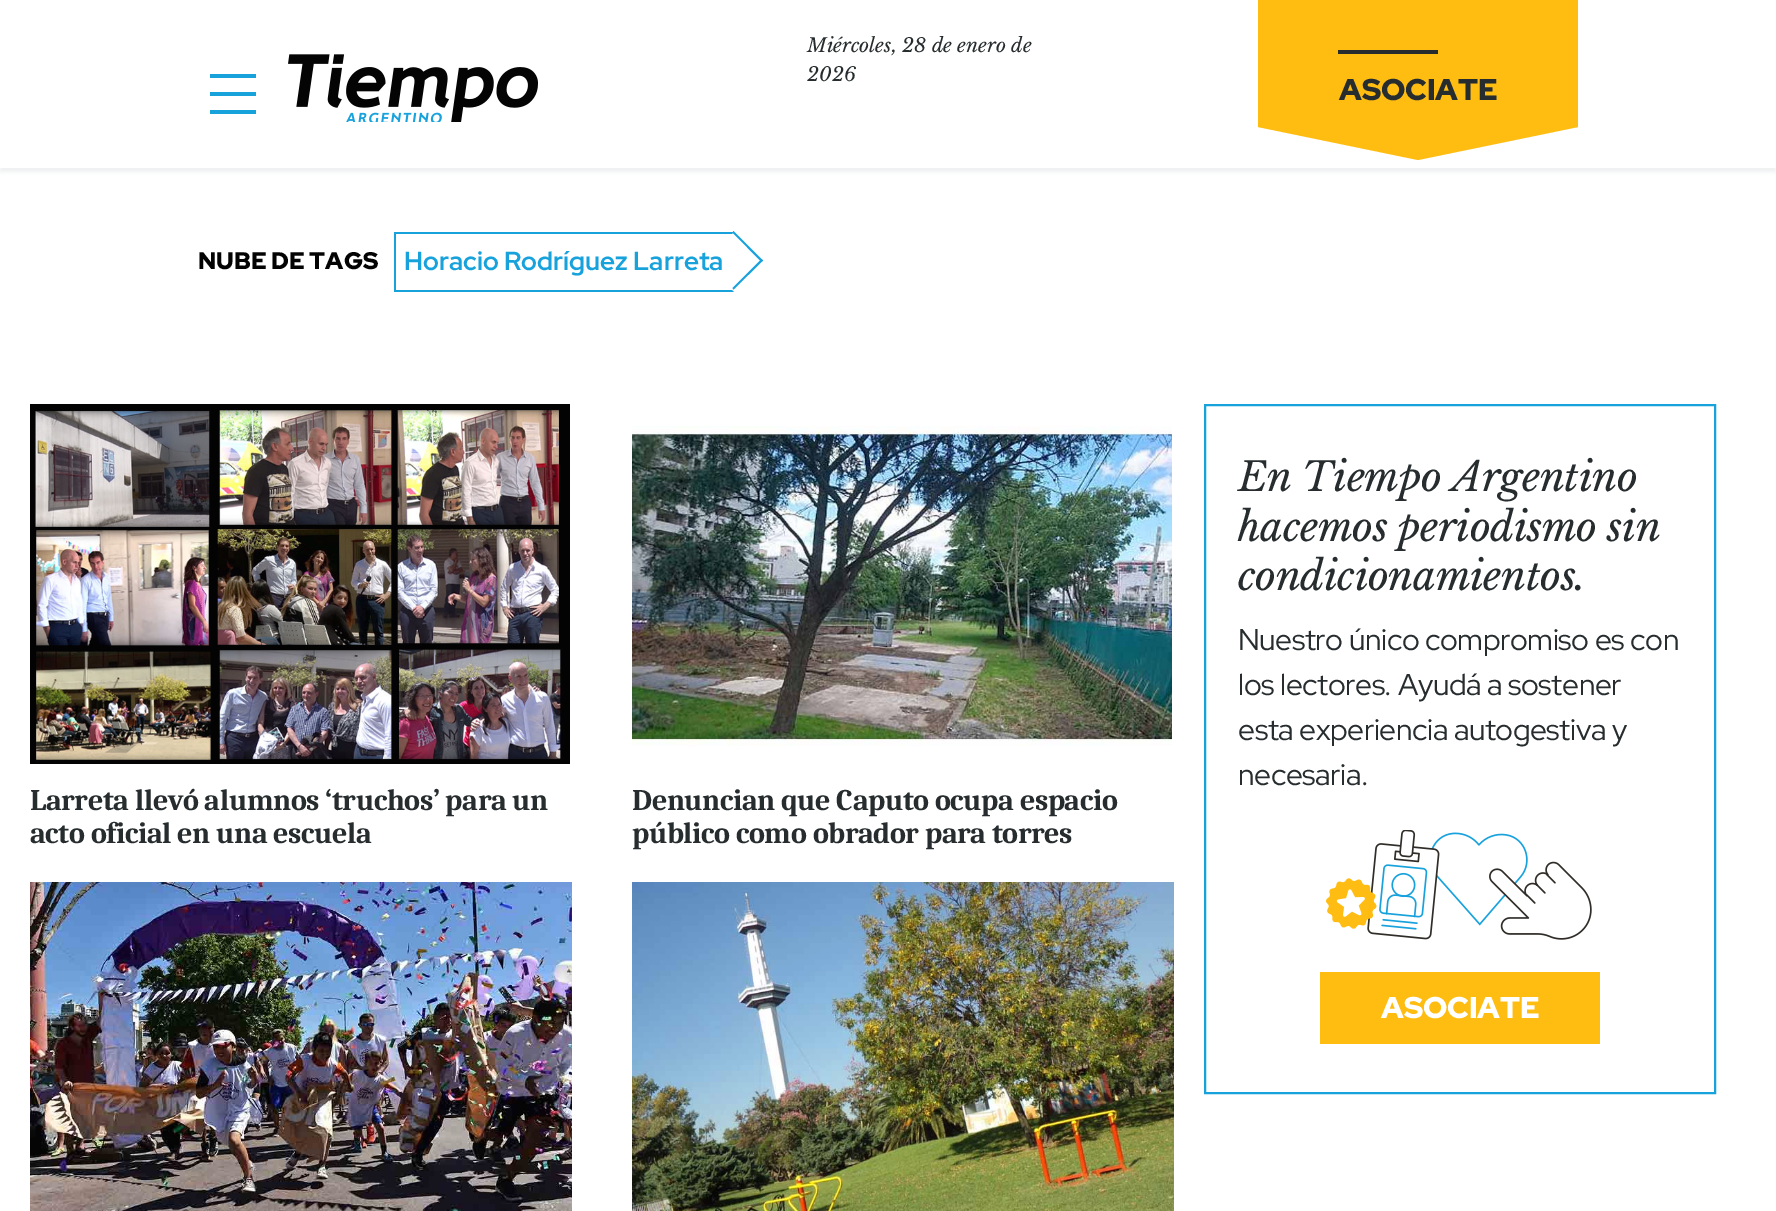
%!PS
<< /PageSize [1776 1211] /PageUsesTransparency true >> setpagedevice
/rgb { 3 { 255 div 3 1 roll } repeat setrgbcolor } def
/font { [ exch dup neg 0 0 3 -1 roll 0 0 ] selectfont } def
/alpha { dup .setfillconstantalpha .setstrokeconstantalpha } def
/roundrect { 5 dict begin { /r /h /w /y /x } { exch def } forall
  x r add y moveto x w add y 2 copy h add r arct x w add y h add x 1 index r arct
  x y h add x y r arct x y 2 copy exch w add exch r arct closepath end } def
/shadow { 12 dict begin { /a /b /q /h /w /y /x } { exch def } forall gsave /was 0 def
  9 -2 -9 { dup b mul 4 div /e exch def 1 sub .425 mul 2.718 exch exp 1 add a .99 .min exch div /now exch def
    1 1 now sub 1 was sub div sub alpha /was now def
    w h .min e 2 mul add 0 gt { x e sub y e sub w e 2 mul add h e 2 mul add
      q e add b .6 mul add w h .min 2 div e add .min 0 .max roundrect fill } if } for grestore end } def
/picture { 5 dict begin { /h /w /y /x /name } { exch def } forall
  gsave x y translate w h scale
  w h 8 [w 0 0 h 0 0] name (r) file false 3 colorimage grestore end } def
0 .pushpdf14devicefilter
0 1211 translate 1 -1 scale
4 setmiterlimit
255 255 255 rgb
0 0 1776 1211 rectfill
gsave
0 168 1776 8 rectclip
238 240 241 rgb
0 4 1776 168 0 2 1 shadow
grestore
[
  [210 74 46 4 24 162 220]
  [210 92 46 4 24 162 220]
  [210 110 46 4 24 162 220]
] { aload pop rgb rectfill } forall
(img/1.rgb) 288 54 250 68 picture
255 188 17 rgb
1258 127 moveto 1258 0 lineto 1578 0 lineto 1578 127 lineto 1418 160 lineto closepath fill
39 45 47 rgb
1338 50 100 4 rectfill
24 162 220 rgb
733.5 231 moveto 763 260.5 lineto 761.5 262 lineto 732.5 232.5 lineto closepath fill
394 232 moveto 734 232 lineto 732 234 lineto 396 234 lineto closepath fill
734 292 moveto 394 292 lineto 396 290 lineto 732 290 lineto closepath fill
394 232 2 60 rectfill
761.5 259 moveto 763 260.5 lineto 733.5 289.5 lineto 732.5 288 lineto closepath fill
(img/2.rgb) 30 404 540 360 picture
(img/3.rgb) 632 426 540 320 picture
(img/4.rgb) 30 882 542 329 picture
(img/5.rgb) 632 882 542 329 picture
2 setlinewidth
1205 405 510 688 rectstroke
(img/6.rgb) 1326 830 266 110 picture
255 188 17 rgb
1320 972 280 72 rectfill
/LibreBaskerville-Italic 19.25 font
39 45 47 rgb
807 52 moveto (Miércoles, 28 de enero de) show
807 81 moveto (2026) show
/RedHatDisplay-Black 30 font
1339 100 moveto (ASOCIATE) show
/RedHatDisplay-Black 24 font
3 3 3 rgb
198 269 moveto (NUBE DE TAGS) show
/RedHatDisplay-Bold 26 font
24 162 220 rgb
404 270 moveto (Horacio Rodríguez Larreta) show
/Caladea-Bold 30 font
39 45 47 rgb
30 810 moveto -0.4 0 (Larreta llevó alumnos ‘truchos’ para un) ashow
30 843 moveto -0.4 0 (acto oficial en una escuela) ashow
632 810 moveto -0.4 0 (Denuncian que Caputo ocupa espacio) ashow
632 843 moveto -0.4 0 (público como obrador para torres) ashow
/LibreBaskerville-Italic 40 font
1238 491 moveto -0.4 0 (En Tiempo Argentino) ashow
1238 541 moveto -0.4 0 (hacemos periodismo sin) ashow
1238 590 moveto -0.4 0 (condicionamientos.) ashow
/RedHatDisplay-Regular 30 font
1238 650 moveto -0.4 0 (Nuestro único compromiso es con) ashow
1238 695 moveto -0.4 0 (los lectores. Ayudá a sostener) ashow
1238 740 moveto -0.4 0 (esta experiencia autogestiva y) ashow
1238 785 moveto -0.4 0 (necesaria.) ashow
/RedHatDisplay-Black 30 font
255 255 255 rgb
1381 1018 moveto (ASOCIATE) show
.poppdf14devicefilter showpage
